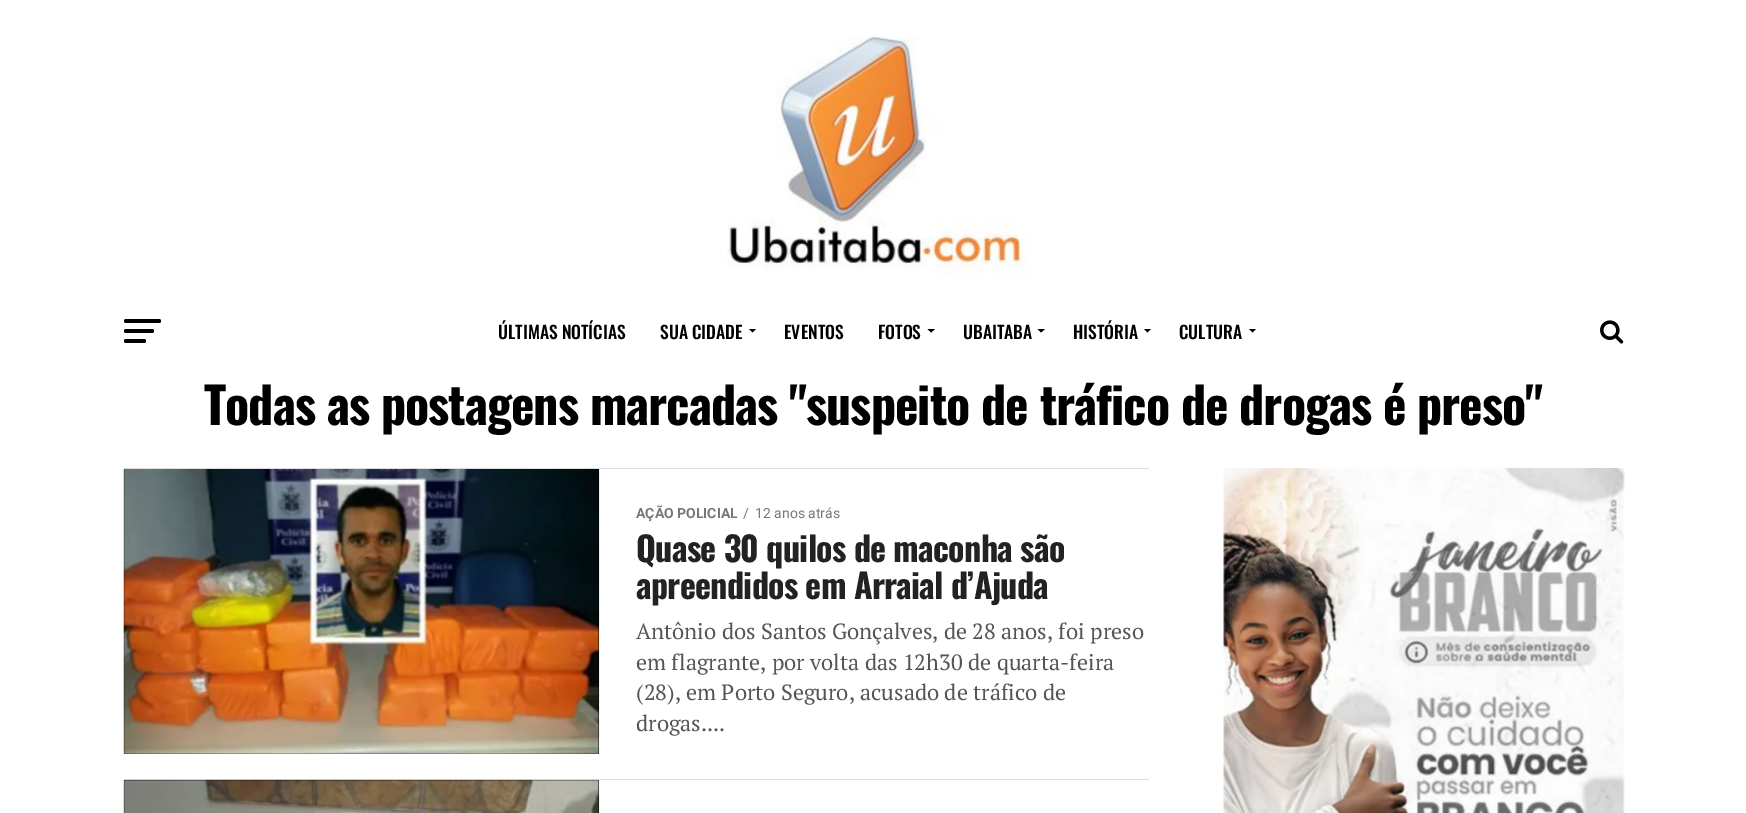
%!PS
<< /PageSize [1746 813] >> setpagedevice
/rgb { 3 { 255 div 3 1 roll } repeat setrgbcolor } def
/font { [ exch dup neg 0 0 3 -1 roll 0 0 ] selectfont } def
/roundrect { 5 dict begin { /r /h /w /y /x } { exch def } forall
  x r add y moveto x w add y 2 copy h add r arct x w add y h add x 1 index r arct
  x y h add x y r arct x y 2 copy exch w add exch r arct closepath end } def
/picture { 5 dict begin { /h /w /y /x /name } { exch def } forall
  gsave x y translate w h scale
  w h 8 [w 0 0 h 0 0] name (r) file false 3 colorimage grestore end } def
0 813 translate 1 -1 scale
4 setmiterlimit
255 255 255 rgb
0 0 1746 813 rectfill
(img/1.rgb) 727 34 306 244 picture
0 0 0 rgb
124 319 37 4 2 roundrect fill
124 329 30 4 2 roundrect fill
124 339 22 4 2 roundrect fill
749 329 moveto 756 329 lineto 752.5 332.5 lineto closepath fill
927.5 329 moveto 935 329 lineto 931 332.5 lineto closepath fill
1037.5 329 moveto 1045 329 lineto 1041 332.5 lineto closepath fill
1144 329 moveto 1151 329 lineto 1147.5 332.5 lineto closepath fill
1249 329 moveto 1256 329 lineto 1252.5 332.5 lineto closepath fill
(img/2.rgb) 1600 320 24 24 picture
221 221 221 rgb
124 468 1025 1 rectfill
0 0 0 rgb
124 469 475 285 rectfill
(img/3.rgb) 123 469 477 285 picture
221 221 221 rgb
124 779 1025 1 rectfill
0 0 0 rgb
124 780 475 33 rectfill
(img/4.rgb) 123 779 477 34 picture
(img/5.rgb) 1223 468 402 345 picture
/Oswald-Medium 17.5 font
[
  [(ÚLTIMAS NOTÍCIAS) 498 339]
  [(SUA CIDADE) 660 339]
  [(EVENTOS) 784 339]
  [(FOTOS) 878 339]
  [(UBAITABA) 963 339]
  [(HISTÓRIA) 1073 339]
  [(CULTURA) 1179 339]
] { aload pop moveto show } forall
/Oswald-Bold 50 font
204 425 moveto -1 0 (Todas as postagens marcadas "suspeito de tráfico de drogas é preso") ashow
/Roboto-Bold 14 font
119 119 119 rgb
636 518 moveto (AÇÃO POLICIAL) show
/Roboto-Regular 14 font
743 518 moveto (/) show
755 518 moveto (12 anos atrás) show
/Oswald-Bold 34 font
34 34 34 rgb
636 562 moveto -0.7 0 (Quase 30 quilos de maconha são) ashow
636 599 moveto -0.7 0 (apreendidos em Arraial d’Ajuda) ashow
/PTSerif-Regular 22 font
85 85 85 rgb
[
  [(Antônio dos Santos Gonçalves, de 28 anos, foi preso) 636 639]
  [(em flagrante, por volta das 12h30 de quarta-feira) 636 670]
  [(\(28\), em Porto Seguro, acusado de tráfico de) 636 700]
  [(drogas....) 636 731]
] { aload pop moveto show } forall
showpage
